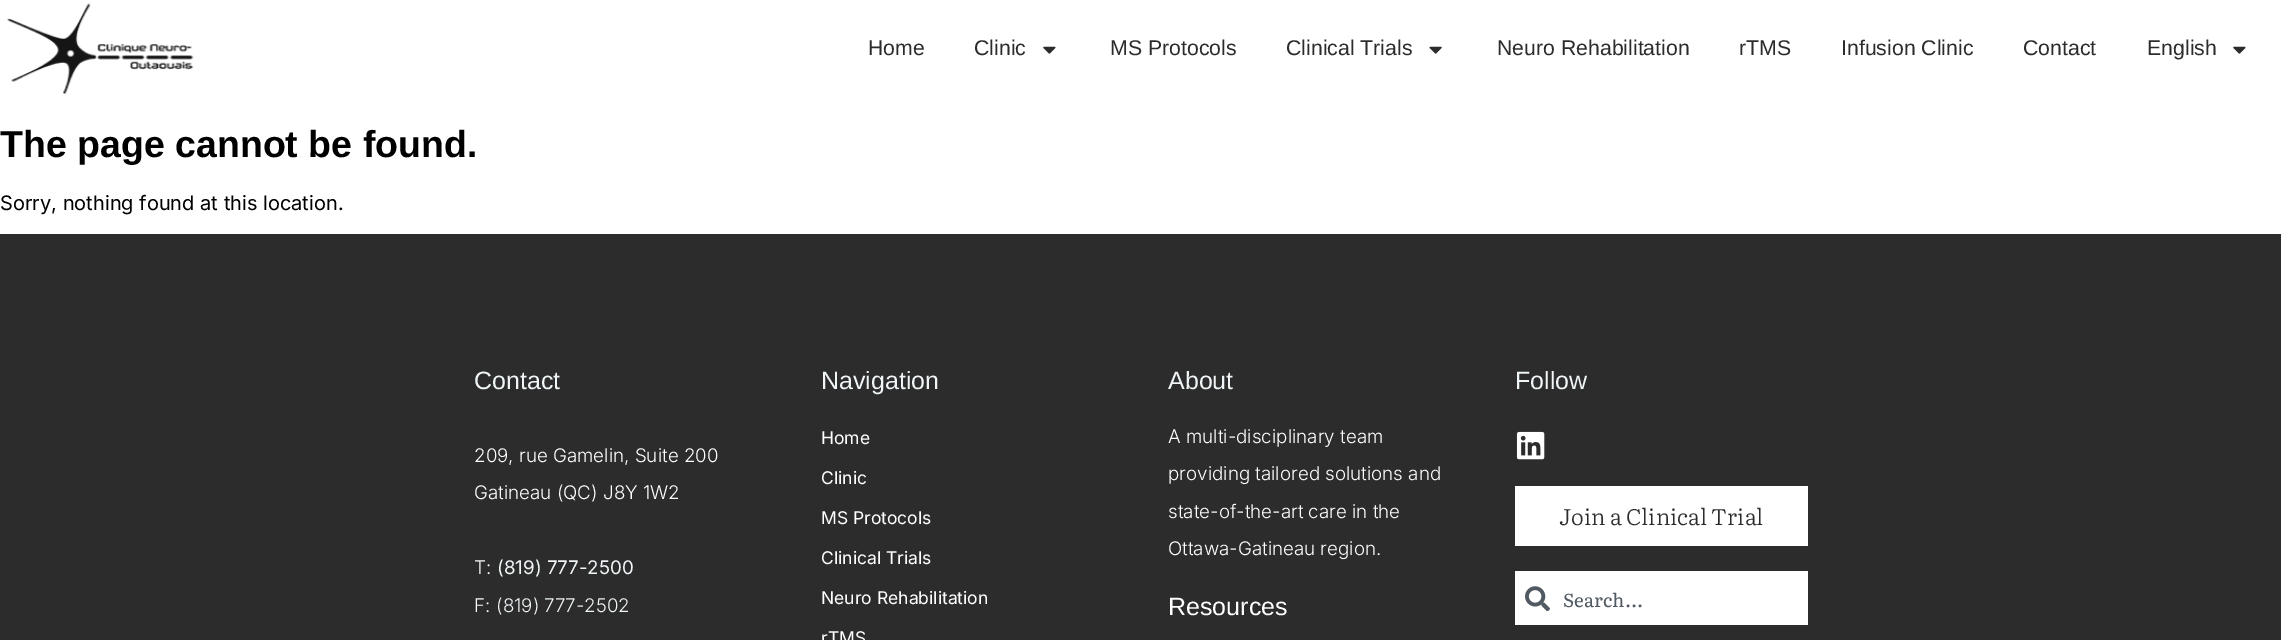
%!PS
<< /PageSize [2281 640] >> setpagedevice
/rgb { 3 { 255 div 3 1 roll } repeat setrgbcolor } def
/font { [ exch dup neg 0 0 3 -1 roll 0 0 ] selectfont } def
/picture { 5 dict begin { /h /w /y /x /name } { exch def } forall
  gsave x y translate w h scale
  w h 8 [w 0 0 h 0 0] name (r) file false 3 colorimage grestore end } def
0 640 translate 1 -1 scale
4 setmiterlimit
255 255 255 rgb
0 0 2281 640 rectfill
(img/1.rgb) 7 3 187 91 picture
(img/2.rgb) 1043 46 13 8 picture
(img/3.rgb) 1429 46 13 8 picture
(img/2.rgb) 2233 46 13 8 picture
44 44 44 rgb
0 234 2281 406 rectfill
(img/4.rgb) 1516 431 29 29 picture
255 255 255 rgb
1515 486 293 60 rectfill
1515 571 293 54 rectfill
(img/5.rgb) 1525 586 25 25 picture
/LiberationSans-Regular 21.25 font
44 44 44 rgb
[
  [(Home) 868 55]
  [(Clinic) 974 55]
  [(MS Protocols) 1110 55]
  [(Clinical Trials) 1286 55]
  [(Neuro Rehabilitation) 1497 55]
  [(rTMS) 1739 55]
  [(Infusion Clinic) 1841 55]
  [(Contact) 2023 55]
  [(English) 2147 55]
] { aload pop moveto show } forall
/LiberationSans-Bold 37.5 font
0 0 0 rgb
0 157 moveto (The page cannot be found.) show
/Inter-Regular 20 font
0 210 moveto (Sorry, nothing found at this location.) show
/LiberationSans-Regular 25 font
240 245 247 rgb
474 389 moveto (Contact) show
/Inter-Light 18.75 font
255 255 255 rgb
[
  [(209, rue Gamelin, Suite 200) 474 462]
  [(Gatineau \(QC\) J8Y 1W2) 474 499]
  [(T:) 474 574]
] { aload pop moveto show } forall
/Inter-Regular 18.75 font
240 245 247 rgb
497 574 moveto (\(819\) 777-2500) show
/Inter-Light 18.75 font
255 255 255 rgb
474 612 moveto (F:) show
240 245 247 rgb
496 612 moveto (\(819\) 777-2502) show
/LiberationSans-Regular 25 font
821 389 moveto (Navigation) show
/Inter-Regular 17.5 font
255 255 255 rgb
[
  [(Home) 821 444]
  [(Clinic) 821 484]
  [(MS Protocols) 821 524]
  [(Clinical Trials) 821 564]
  [(Neuro Rehabilitation) 821 604]
  [(rTMS) 821 644]
] { aload pop moveto show } forall
/LiberationSans-Regular 25 font
240 245 247 rgb
1168 389 moveto (About) show
/Inter-Light 18.75 font
255 255 255 rgb
[
  [(A multi-disciplinary team) 1168 443]
  [(providing tailored solutions and) 1168 480]
  [(state-of-the-art care in the) 1168 518]
  [(Ottawa-Gatineau region.) 1168 555]
] { aload pop moveto show } forall
/LiberationSans-Regular 25 font
1168 615 moveto (Resources) show
240 245 247 rgb
1515 389 moveto (Follow) show
/Literata-Light 22.5 font
44 44 44 rgb
1559 525 moveto (Join a Clinical Trial) show
/Literata-Regular 18.75 font
81 89 98 rgb
1563 607 moveto (Search...) show
showpage
